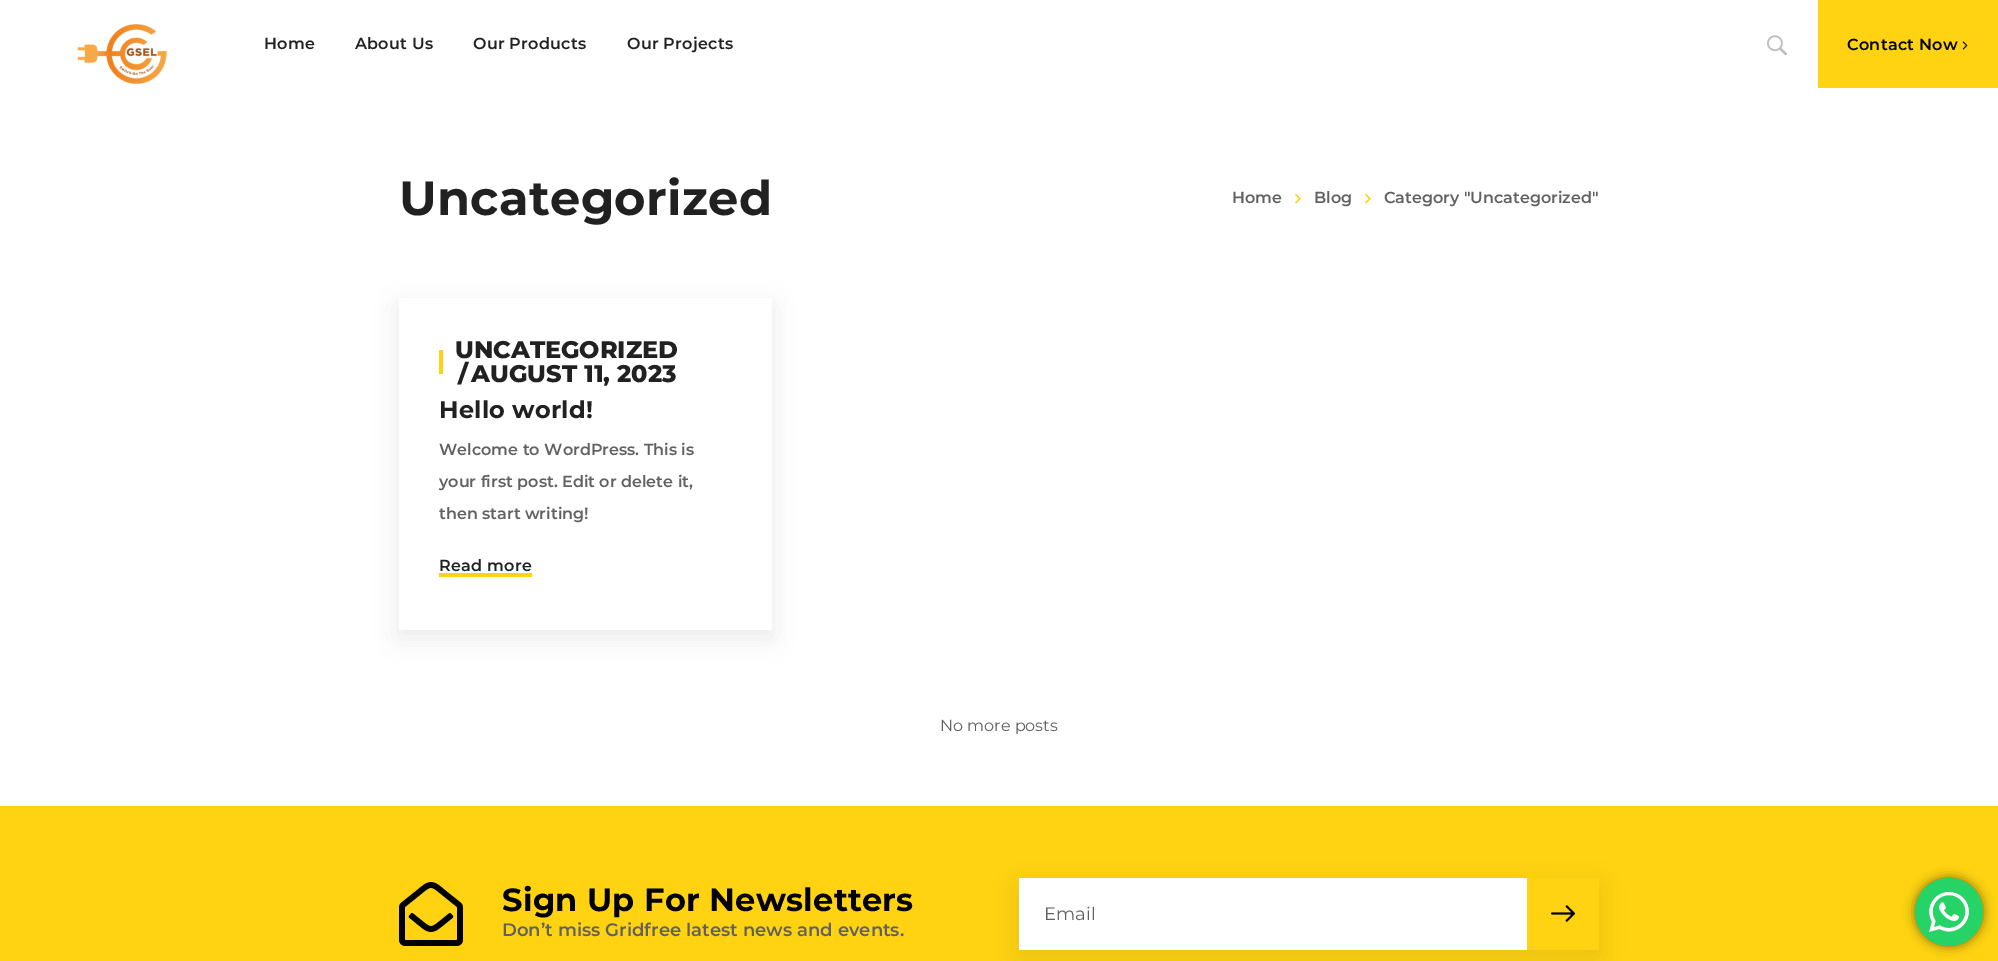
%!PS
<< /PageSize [1998 961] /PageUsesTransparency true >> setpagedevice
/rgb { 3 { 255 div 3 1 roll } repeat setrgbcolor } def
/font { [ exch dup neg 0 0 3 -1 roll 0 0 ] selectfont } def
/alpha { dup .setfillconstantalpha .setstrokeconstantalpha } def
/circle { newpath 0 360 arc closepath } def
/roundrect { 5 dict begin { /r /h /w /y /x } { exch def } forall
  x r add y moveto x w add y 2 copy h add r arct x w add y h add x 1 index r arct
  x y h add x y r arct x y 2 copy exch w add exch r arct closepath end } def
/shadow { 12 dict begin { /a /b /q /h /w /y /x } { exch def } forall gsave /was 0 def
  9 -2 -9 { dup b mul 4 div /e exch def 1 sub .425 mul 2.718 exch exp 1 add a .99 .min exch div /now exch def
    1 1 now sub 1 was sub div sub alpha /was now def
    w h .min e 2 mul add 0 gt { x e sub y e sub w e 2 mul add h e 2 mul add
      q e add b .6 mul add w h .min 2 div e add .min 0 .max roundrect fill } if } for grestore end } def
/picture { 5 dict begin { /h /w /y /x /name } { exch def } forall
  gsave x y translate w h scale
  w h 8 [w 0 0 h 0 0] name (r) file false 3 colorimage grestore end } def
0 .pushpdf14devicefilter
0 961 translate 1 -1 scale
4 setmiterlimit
255 255 255 rgb
0 0 1998 961 rectfill
(img/1.rgb) 77 24 91 61 picture
(img/2.rgb) 1767 35 20 21 picture
255 211 17 rgb
1818 0 180 88 rectfill
(img/3.rgb) 1962 41 6 9 picture
(img/4.rgb) 1295 193 6 11 picture
(img/4.rgb) 1365 193 6 11 picture
gsave
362 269 moveto 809 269 lineto 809 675 lineto 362 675 lineto closepath 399 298 moveto 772 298 lineto 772 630 lineto 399 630 lineto closepath eoclip newpath
0 0 0 rgb
399 306 373 332 0 12 0.08 shadow
grestore
[
  [439 350 4 24 255 211 17]
  [439 573 93 4 255 211 17]
  [0 806 1998 155 255 211 17]
] { aload pop rgb rectfill } forall
(img/5.rgb) 399 882 64 64 picture
0 0 0 rgb
1019 886 580 72 0 12 0.08 shadow
255 255 255 rgb
1019 878 508 72 rectfill
255 211 17 rgb
1527 878 72 72 rectfill
(img/6.rgb) 1551 905 24 17 picture
0 0 0 rgb
1915 878 68 68 34 5.5 0.5 shadow
37 211 102 rgb
1949 912 34 circle fill
(img/7.rgb) 1929 892 40 40 picture
/Montserrat-SemiBold 16 font
33 33 33 rgb
264 49 moveto 0.25 0 (Home) ashow
355 49 moveto 0.25 0 (About Us) ashow
473 49 moveto 0.25 0 (Our Products) ashow
627 49 moveto 0.25 0 (Our Projects) ashow
0 0 0 rgb
1847 50 moveto 0.25 0 (Contact Now) ashow
/Montserrat-Bold 48 font
33 33 33 rgb
399 215 moveto 0.25 0 (Uncategorized) ashow
/Montserrat-SemiBold 16 font
97 97 97 rgb
[
  [(Home) 1232 203]
  [(Blog) 1314 203]
  [(Category "Uncategorized") 1384 203]
] { aload pop moveto show } forall
/Montserrat-ExtraBold 24 font
33 33 33 rgb
[
  [(UNCATEGORIZED) 455 358]
  [(/) 458 382]
  [(AUGUST 11, 2023) 471 382]
] { aload pop moveto show } forall
/Montserrat-Bold 24 font
439 418 moveto 0.25 0 (Hello world!) ashow
/Montserrat-SemiBold 16 font
97 97 97 rgb
[
  [(Welcome to WordPress. This is) 439 455]
  [(your first post. Edit or delete it,) 439 487]
  [(then start writing!) 439 519]
] { aload pop moveto show } forall
33 33 33 rgb
439 571 moveto 0.25 0 (Read more) ashow
/Montserrat-Regular 16 font
97 97 97 rgb
940 731 moveto (No more posts) show
/Montserrat-Bold 32 font
0 0 0 rgb
502 911 moveto 0.25 0 (Sign Up For Newsletters) ashow
/Montserrat-SemiBold 18 font
97 97 97 rgb
502 936 moveto (Don’t miss Gridfree latest news and events.) show
/Montserrat-Regular 18 font
1044 920 moveto (Email) show
.poppdf14devicefilter showpage
